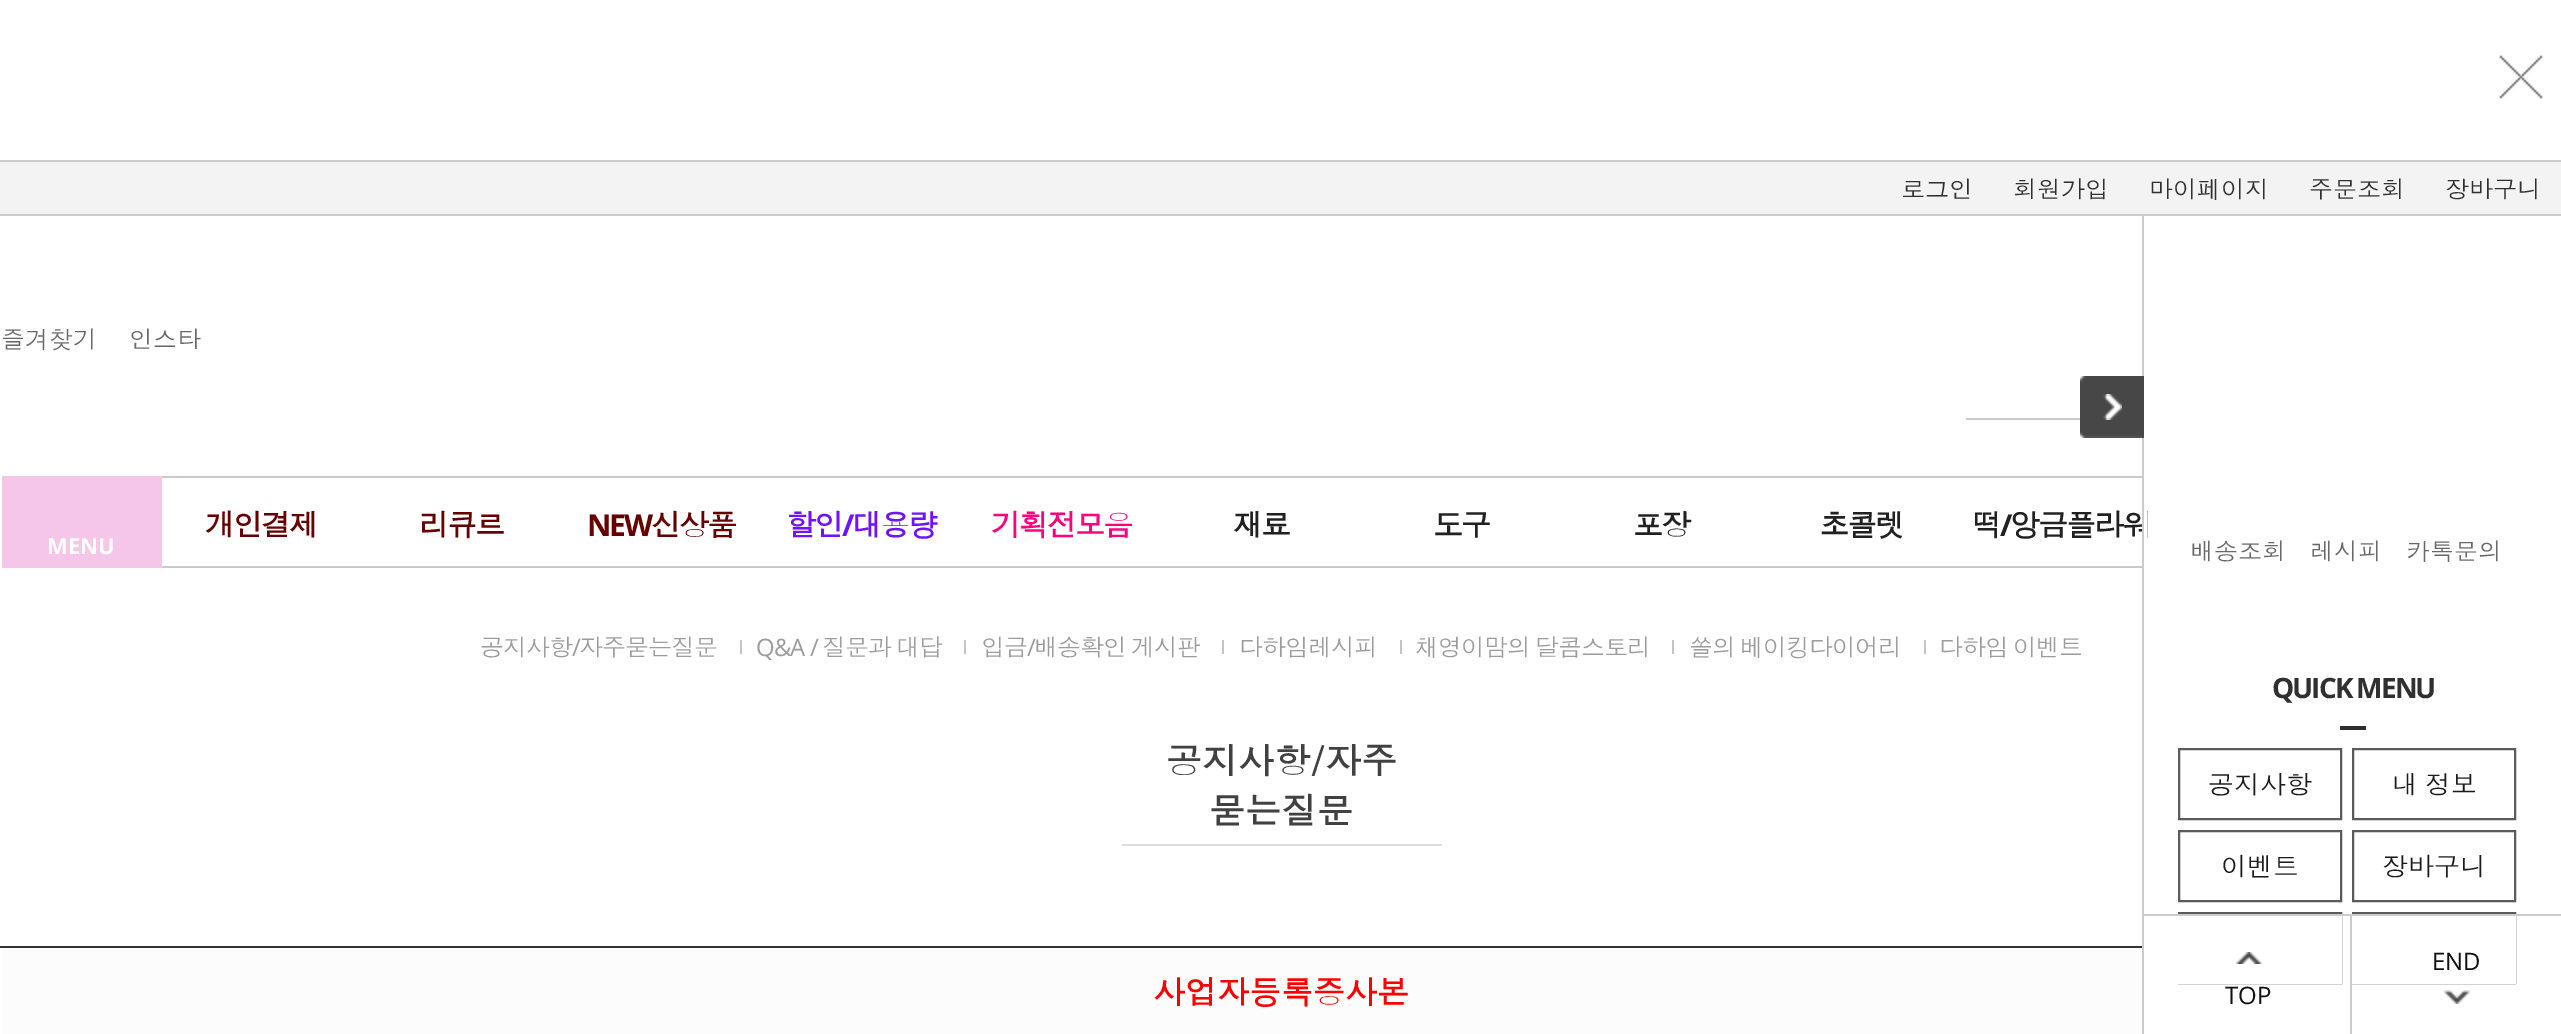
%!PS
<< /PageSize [2561 1034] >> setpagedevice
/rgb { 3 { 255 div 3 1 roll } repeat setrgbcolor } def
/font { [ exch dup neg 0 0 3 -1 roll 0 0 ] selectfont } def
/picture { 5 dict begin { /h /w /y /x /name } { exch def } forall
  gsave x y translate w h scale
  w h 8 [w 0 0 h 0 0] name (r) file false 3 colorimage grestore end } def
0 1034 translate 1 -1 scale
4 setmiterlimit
255 255 255 rgb
0 0 2561 1034 rectfill
(img/1.rgb) 2499 55 44 44 picture
[
  [0 162 2561 52 243 243 243]
  [0 160 2561 2 204 204 204]
  [0 214 2561 2 204 204 204]
  [1966 418 114 2 202 202 202]
  [162 476 1980 2 202 202 202]
  [162 566 1980 2 202 202 202]
  [2 476 160 92 245 198 234]
  [740 640 2 14 197 197 197]
  [964 640 2 14 197 197 197]
  [1222 640 2 14 197 197 197]
  [1400 640 2 14 197 197 197]
  [1672 640 2 14 197 197 197]
  [1924 640 2 14 197 197 197]
  [1122 844 320 2 221 221 221]
  [2 948 2140 86 252 252 252]
  [0 946 2142 2 51 51 51]
  [2340 726 26 4 44 44 44]
] { aload pop rgb rectfill } forall
91 91 91 rgb
2 setlinewidth
2179 749 162 70 rectstroke
2353 749 162 70 rectstroke
2179 831 162 70 rectstroke
2353 831 162 70 rectstroke
2179 913 162 70 rectstroke
2353 913 162 70 rectstroke
[
  [2144 914 417 2 204 204 204]
  [2352 916 164 68 255 255 255]
  [2350 916 2 118 204 204 204]
] { aload pop rgb rectfill } forall
(img/4.rgb) 2444 990 26 14 picture
255 255 255 rgb
2178 916 164 68 rectfill
(img/5.rgb) 2236 952 26 12 picture
/Dotum-Regular 24 font
48 48 48 rgb
[
  [(로그인) 1901 198]
  [(회원가입) 2013 198]
  [(마이페이지) 2149 198]
  [(주문조회) 2309 198]
  [(장바구니) 2445 198]
] { aload pop moveto show } forall
104 104 104 rgb
1 348 moveto (즐겨찾기) show
129 348 moveto (인스타) show
/Dotum-Bold 30 font
103 0 0 rgb
205 536 moveto -2 0 (개인결제) ashow
419 536 moveto -2 0 (리큐르) ashow
/OpenSans-Bold 30 font
587 536 moveto -2 0 (NEW) ashow
/Dotum-Bold 30 font
651 536 moveto -2 0 (신상품) ashow
113 18 255 rgb
786 536 moveto -2 0 (할인) ashow
/OpenSans-Bold 30 font
842 536 moveto -2 0 (/) ashow
/Dotum-Bold 30 font
852 536 moveto -2 0 (대용량) ashow
255 0 127 rgb
991 536 moveto -2 0 (기획전모음) ashow
33 33 33 rgb
1233 536 moveto -2 0 (재료) ashow
1433 536 moveto -2 0 (도구) ashow
1633 536 moveto -2 0 (포장) ashow
1819 536 moveto -2 0 (초콜렛) ashow
1972 536 moveto -2 0 (떡) ashow
/OpenSans-Bold 30 font
2000 536 moveto -2 0 (/) ashow
/Dotum-Bold 30 font
2010 536 moveto -2 0 (앙금플라워) ashow
/OpenSans-Bold 22 font
255 255 255 rgb
47 554 moveto (MENU) show
/Dotum-Regular 24 font
156 156 156 rgb
480 656 moveto -1 0 (공지사항) ashow
/OpenSans-Regular 24 font
572 656 moveto -1 0 (/) ashow
/Dotum-Regular 24 font
579 656 moveto -1 0 (자주묻는질문) ashow
/OpenSans-Regular 24 font
756 656 moveto -1 0 (Q&A /) ashow
/Dotum-Regular 24 font
822 656 moveto -1 0 (질문과) ashow
896 656 moveto -1 0 (대답) ashow
981 656 moveto -1 0 (입금) ashow
/OpenSans-Regular 24 font
1027 656 moveto -1 0 (/) ashow
/Dotum-Regular 24 font
1034 656 moveto -2 0 32 -1 0 (배송확인 게시판) awidthshow
1239 656 moveto -1 0 (다하임레시피) ashow
1415 656 moveto -2 0 32 -1 0 (채영이맘의 달콤스토리) awidthshow
1689 656 moveto -2 0 32 -1 0 (쏠의 베이킹다이어리) awidthshow
1939 656 moveto -2 0 32 -1 0 (다하임 이벤트) awidthshow
/Dotum-Bold 36 font
65 65 65 rgb
1166 774 moveto (공지사항/자주) show
1209 824 moveto (묻는질문) show
/Dotum-Bold 32 font
255 0 0 rgb
1153 1004 moveto (사업자등록증사본) show
255 255 255 rgb
2144 511 3 27 rectfill
204 204 204 rgb
2142 216 2 818 rectfill
(img/2.rgb) 2080 376 64 62 picture
(img/3.rgb) 2103 394 19 26 picture
/Dotum-Regular 24 font
104 104 104 rgb
[
  [(배송조회) 2190 560]
  [(레시피) 2310 560]
  [(카톡문의) 2406 560]
] { aload pop moveto show } forall
/OpenSans-Bold 28 font
48 48 48 rgb
2272 698 moveto -2 0 (QUICK MENU) ashow
/Dotum-Regular 26 font
27 27 27 rgb
2208 794 moveto (공지사항) show
2392 794 moveto -2 0 32 (내 정보) widthshow
2221 876 moveto (이벤트) show
2382 876 moveto (장바구니) show
/OpenSans-Regular 24 font
17 17 17 rgb
2432 970 moveto (END) show
2225 1004 moveto (TOP) show
showpage
